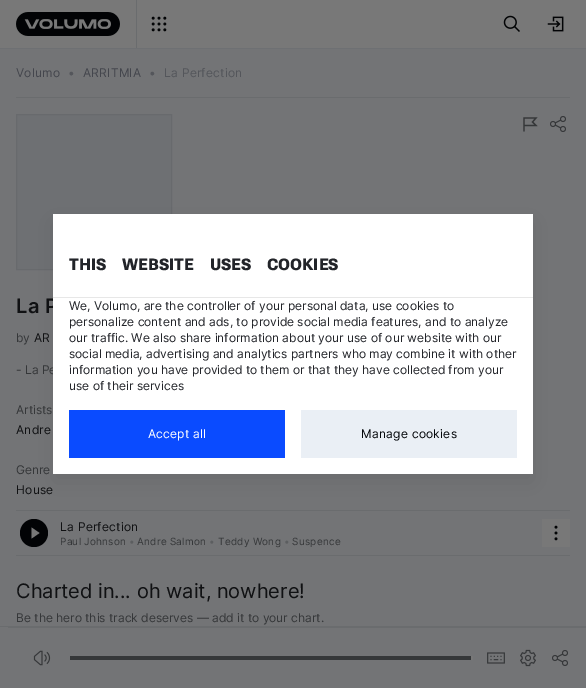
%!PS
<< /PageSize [586 688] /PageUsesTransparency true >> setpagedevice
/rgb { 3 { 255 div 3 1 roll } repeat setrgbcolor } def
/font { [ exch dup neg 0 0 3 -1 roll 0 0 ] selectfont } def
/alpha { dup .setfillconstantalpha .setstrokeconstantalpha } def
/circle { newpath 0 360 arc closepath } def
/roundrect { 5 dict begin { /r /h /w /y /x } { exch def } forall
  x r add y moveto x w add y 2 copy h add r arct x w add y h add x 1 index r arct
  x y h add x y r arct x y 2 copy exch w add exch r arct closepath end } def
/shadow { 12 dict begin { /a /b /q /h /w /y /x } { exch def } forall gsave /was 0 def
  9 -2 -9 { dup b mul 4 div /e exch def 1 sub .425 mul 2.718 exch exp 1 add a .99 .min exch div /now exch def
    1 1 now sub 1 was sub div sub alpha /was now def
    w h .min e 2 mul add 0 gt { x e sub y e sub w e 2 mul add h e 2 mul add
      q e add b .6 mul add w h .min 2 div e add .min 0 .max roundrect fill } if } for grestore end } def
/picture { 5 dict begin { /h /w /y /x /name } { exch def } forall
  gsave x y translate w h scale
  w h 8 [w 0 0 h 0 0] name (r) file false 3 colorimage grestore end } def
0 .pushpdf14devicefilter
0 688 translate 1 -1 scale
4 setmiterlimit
115 116 118 rgb
0 0 586 688 rectfill
120 120 120 rgb
0 0 586 48 rectfill
110 112 115 rgb
0 48 586 1 rectfill
(img/1.rgb) 16 12 104 24 picture
106 108 110 rgb
136 0 1 48 rectfill
(img/2.rgb) 151 16 16 16 picture
(img/3.rgb) 503 15 17 17 picture
(img/4.rgb) 547 16 17 16 picture
16 97 554 1 rectfill
110 112 115 rgb
16.5 114.5 moveto 171.5 114.5 lineto 171.5 269.5 lineto 16.5 269.5 lineto closepath gsave fill grestore
104 106 109 rgb
stroke
53 55 57 rgb
1.2 setlinewidth
524 125.5 moveto 536 125.5 lineto 532.5 122 lineto 536 118 lineto 524 118 lineto 524 131.5 lineto stroke
(img/5.rgb) 550 116 16 16 picture
106 108 110 rgb
16 510 554 1 rectfill
2 3 5 rgb
34 533 14 circle fill
120 120 120 rgb
31.5 527.5 moveto 39.5 533 lineto 31.5 538.5 lineto closepath fill
542 519 28 28 rectfill
(img/6.rgb) 554 525 4 16 picture
[
  [16 555 554 1 106 108 110]
  [0 626 586 1 106 108 110]
  [8 627 578 1 106 108 110]
] { aload pop rgb rectfill } forall
(img/7.rgb) 33 650 18 16 picture
53 55 57 rgb
70 656 402 4 rectfill
120 120 120 rgb
471 656 2 4 rectfill
(img/8.rgb) 487 652 18 12 picture
(img/9.rgb) 520 649 16 18 picture
(img/5.rgb) 552 650 16 16 picture
0 0 0 rgb
53 222 480 260 0 12 0.09 shadow
/Inter-Regular 12 font
68 70 77 rgb
16 77 moveto 0.25 0 (Volumo) ashow
84 86 91 rgb
68 77 moveto (•) show
68 70 77 rgb
83 77 moveto 0.25 0 (ARRITMIA) ashow
84 86 91 rgb
149 77 moveto (•) show
164 77 moveto 0.25 0 (La Perfection) ashow
/Inter-SemiBold 20 font
16 17 19 rgb
16 313 moveto 0.25 0 (La P) ashow
/Inter-Regular 12 font
53 55 57 rgb
16 342 moveto (by) show
16 17 19 rgb
34 342 moveto 0.25 0 (AR) ashow
53 55 57 rgb
16 374 moveto (- La Pe) show
16 414 moveto (Artists) show
16 17 19 rgb
16 434 moveto 0.25 0 (Andre) ashow
53 55 57 rgb
16 474 moveto (Genre) show
16 17 19 rgb
16 494 moveto 0.25 0 (House) ashow
60 531 moveto 0.25 0 (La Perfection) ashow
/Inter-Regular 10 font
53 55 57 rgb
60 545 moveto 0.25 0 (Paul Johnson) ashow
92 94 96 rgb
129 545 moveto (•) show
53 55 57 rgb
137 545 moveto 0.25 0 (Andre Salmon) ashow
92 94 96 rgb
209 545 moveto (•) show
53 55 57 rgb
218 545 moveto 0.25 0 (Teddy Wong) ashow
92 94 96 rgb
284 545 moveto (•) show
53 55 57 rgb
292 545 moveto 0.25 0 (Suspence) ashow
/Inter-Regular 20 font
16 17 19 rgb
16 598 moveto (Charted in... oh wait, nowhere!) show
/Inter-Regular 12 font
53 55 57 rgb
16 622 moveto (Be the hero this track deserves — add it to your chart.) show
255 255 255 rgb
53 214 480 260 rectfill
231 231 231 rgb
53 297 480 1 rectfill
/RobotoFlex-Black 16 font
34 36 41 rgb
69 270 moveto 12 0 32 (THIS WEBSITE USES COOKIES) widthshow
/Inter-Regular 12 font
[
  [(We, Volumo, are the controller of your personal data, use cookies to) 69 310]
  [(personalize content and ads, to provide social media features, and to analyze) 69 326]
  [(our traffic. We also share information about your use of our website with our) 69 342]
  [(social media, advertising and analytics partners who may combine it with other) 69 358]
  [(information you have provided to them or that they have collected from your) 69 374]
  [(use of their services) 69 390]
] { aload pop moveto show } forall
10 75 255 rgb
69 410 216 48 rectfill
255 255 255 rgb
148 438 moveto 0.25 0 (Accept all) ashow
234 239 245 rgb
301 410 216 48 rectfill
4 7 10 rgb
361 438 moveto 0.25 0 (Manage cookies) ashow
.poppdf14devicefilter showpage
